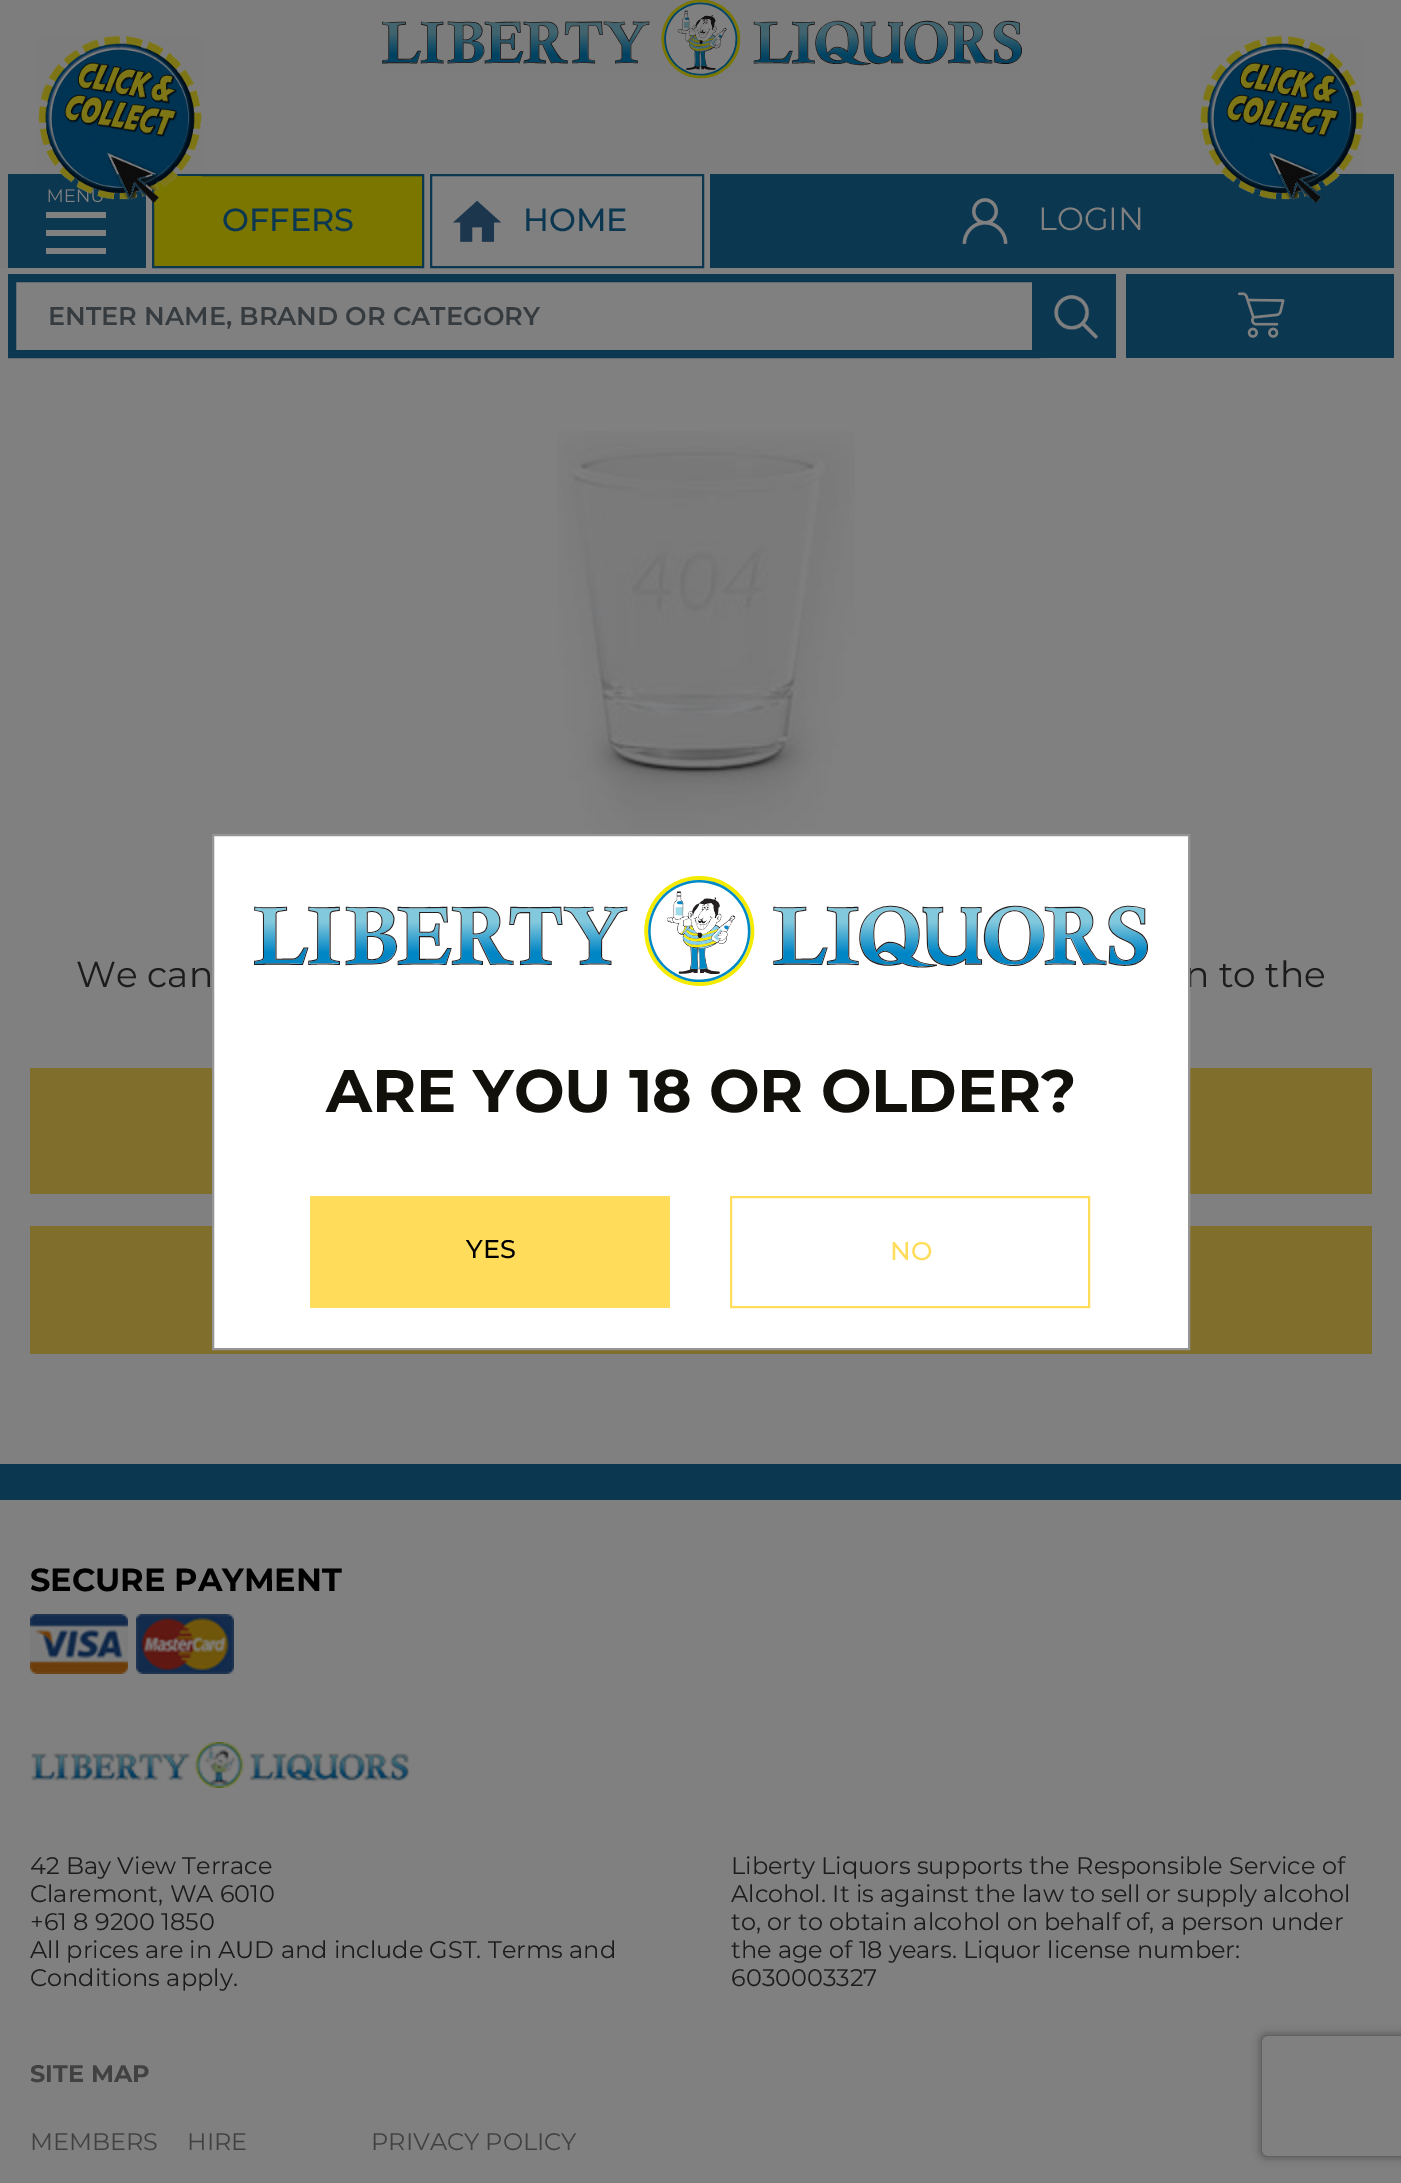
%!PS
<< /PageSize [1401 2183] /PageUsesTransparency true >> setpagedevice
/rgb { 3 { 255 div 3 1 roll } repeat setrgbcolor } def
/font { [ exch dup neg 0 0 3 -1 roll 0 0 ] selectfont } def
/alpha { dup .setfillconstantalpha .setstrokeconstantalpha } def
/roundrect { 5 dict begin { /r /h /w /y /x } { exch def } forall
  x r add y moveto x w add y 2 copy h add r arct x w add y h add x 1 index r arct
  x y h add x y r arct x y 2 copy exch w add exch r arct closepath end } def
/shadow { 12 dict begin { /a /b /q /h /w /y /x } { exch def } forall gsave /was 0 def
  9 -2 -9 { dup b mul 4 div /e exch def 1 sub .425 mul 2.718 exch exp 1 add a .99 .min exch div /now exch def
    1 1 now sub 1 was sub div sub alpha /was now def
    w h .min e 2 mul add 0 gt { x e sub y e sub w e 2 mul add h e 2 mul add
      q e add b .6 mul add w h .min 2 div e add .min 0 .max roundrect fill } if } for grestore end } def
/picture { 5 dict begin { /h /w /y /x /name } { exch def } forall
  gsave x y translate w h scale
  w h 8 [w 0 0 h 0 0] name (r) file false 3 colorimage grestore end } def
0 .pushpdf14devicefilter
0 2183 translate 1 -1 scale
4 setmiterlimit
128 128 128 rgb
0 0 1401 2183 rectfill
125 125 125 rgb
0 0 1401 268 rectfill
(img/2.rgb) 382 0 640 79 picture
12 55 80 rgb
710 174 684 94 rectfill
(img/3.rgb) 1200 35 164 169 picture
[
  [146 174 564 94 128 128 128]
  [8 174 138 94 12 55 80]
  [46 230 60 6 128 128 128]
  [46 212 60 6 128 128 128]
  [46 248 60 6 128 128 128]
] { aload pop rgb rectfill } forall
123 118 0 rgb
153 175 moveto 423 175 lineto 423 267 lineto 153 267 lineto closepath gsave fill grestore
12 55 80 rgb
2 setlinewidth
stroke
431 175 272 92 rectstroke
(img/4.rgb) 453 200 49 42 picture
(img/5.rgb) 962 198 46 46 picture
8 setlinewidth
12 278 1024 76 rectstroke
1040 274 76 84 rectfill
(img/6.rgb) 1054 295 44 44 picture
1126 274 268 84 rectfill
(img/7.rgb) 1238 292 47 46 picture
(img/8.rgb) 557 431 298 403 picture
[
  [30 1068 1342 126 128 110 45]
  [30 1226 1342 128 128 110 45]
  [0 1464 1401 36 12 55 80]
] { aload pop rgb rectfill } forall
(img/10.rgb) 30 1614 98 60 picture
(img/11.rgb) 136 1614 98 60 picture
(img/12.rgb) 31 1742 378 46 picture
gsave
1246 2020 moveto 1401 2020 lineto 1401 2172 lineto 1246 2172 lineto closepath 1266 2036 moveto 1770 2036 lineto 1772 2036 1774 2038 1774 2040 curveto 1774 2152 lineto 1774 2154 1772 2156 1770 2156 curveto 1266 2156 lineto 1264 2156 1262 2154 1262 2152 curveto 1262 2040 lineto 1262 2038 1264 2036 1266 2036 curveto closepath eoclip newpath
64 64 64 rgb
1262 2036 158 120 4 5 1 shadow
grestore
/Montserrat-Regular 18 font
128 128 128 rgb
47 202 moveto (MENU) show
(img/1.rgb) 38 35 164 169 picture
/Montserrat-Medium 32 font
12 55 80 rgb
222 231 moveto (OFFERS) show
523 231 moveto (HOME) show
/Montserrat-Regular 32 font
128 128 128 rgb
1038 230 moveto (LOGIN) show
/Montserrat-SemiBold 25.6 font
54 59 63 rgb
48 325 moveto (ENTER NAME, BRAND OR CATEGORY) show
/Montserrat-Regular 36 font
28 28 28 rgb
76 987 moveto (We can) show
1185 987 moveto (n to the) show
255 255 255 rgb
213 835 moveto 1189 835 lineto 1189 1349 lineto 213 1349 lineto closepath gsave fill grestore
149 149 149 rgb
2 setlinewidth
stroke
(img/9.rgb) 254 876 894 110 picture
/Montserrat-Bold 60 font
18 16 10 rgb
326 1112 moveto (ARE YOU 18 OR OLDER?) show
255 220 90 rgb
310 1196 360 112 rectfill
/Montserrat-Medium 25.6 font
0 0 0 rgb
466 1258 moveto (YES) show
255 220 90 rgb
731 1197 358 110 rectstroke
890 1260 moveto (NO) show
/Montserrat-Bold 32 font
0 0 0 rgb
30 1591 moveto (SECURE PAYMENT) show
/Montserrat-Regular 24 font
28 28 28 rgb
[
  [(42 Bay View Terrace) 30 1874]
  [(Claremont, WA 6010) 30 1902]
  [(+61 8 9200 1850) 30 1930]
  [(All prices are in AUD and include GST. Terms and) 30 1958]
  [(Conditions apply.) 30 1986]
  [(Liberty Liquors supports the Responsible Service of) 731 1874]
  [(Alcohol. It is against the law to sell or supply alcohol) 731 1902]
  [(to, or to obtain alcohol on behalf of, a person under) 731 1930]
  [(the age of 18 years. Liquor license number:) 731 1958]
  [(6030003327) 731 1986]
] { aload pop moveto show } forall
/Montserrat-Bold 24 font
65 65 65 rgb
30 2082 moveto (SITE MAP) show
/Montserrat-Regular 24 font
[
  [(MEMBERS) 30 2150]
  [(HIRE) 187 2150]
  [(PRIVACY POLICY) 371 2150]
] { aload pop moveto show } forall
.poppdf14devicefilter showpage
